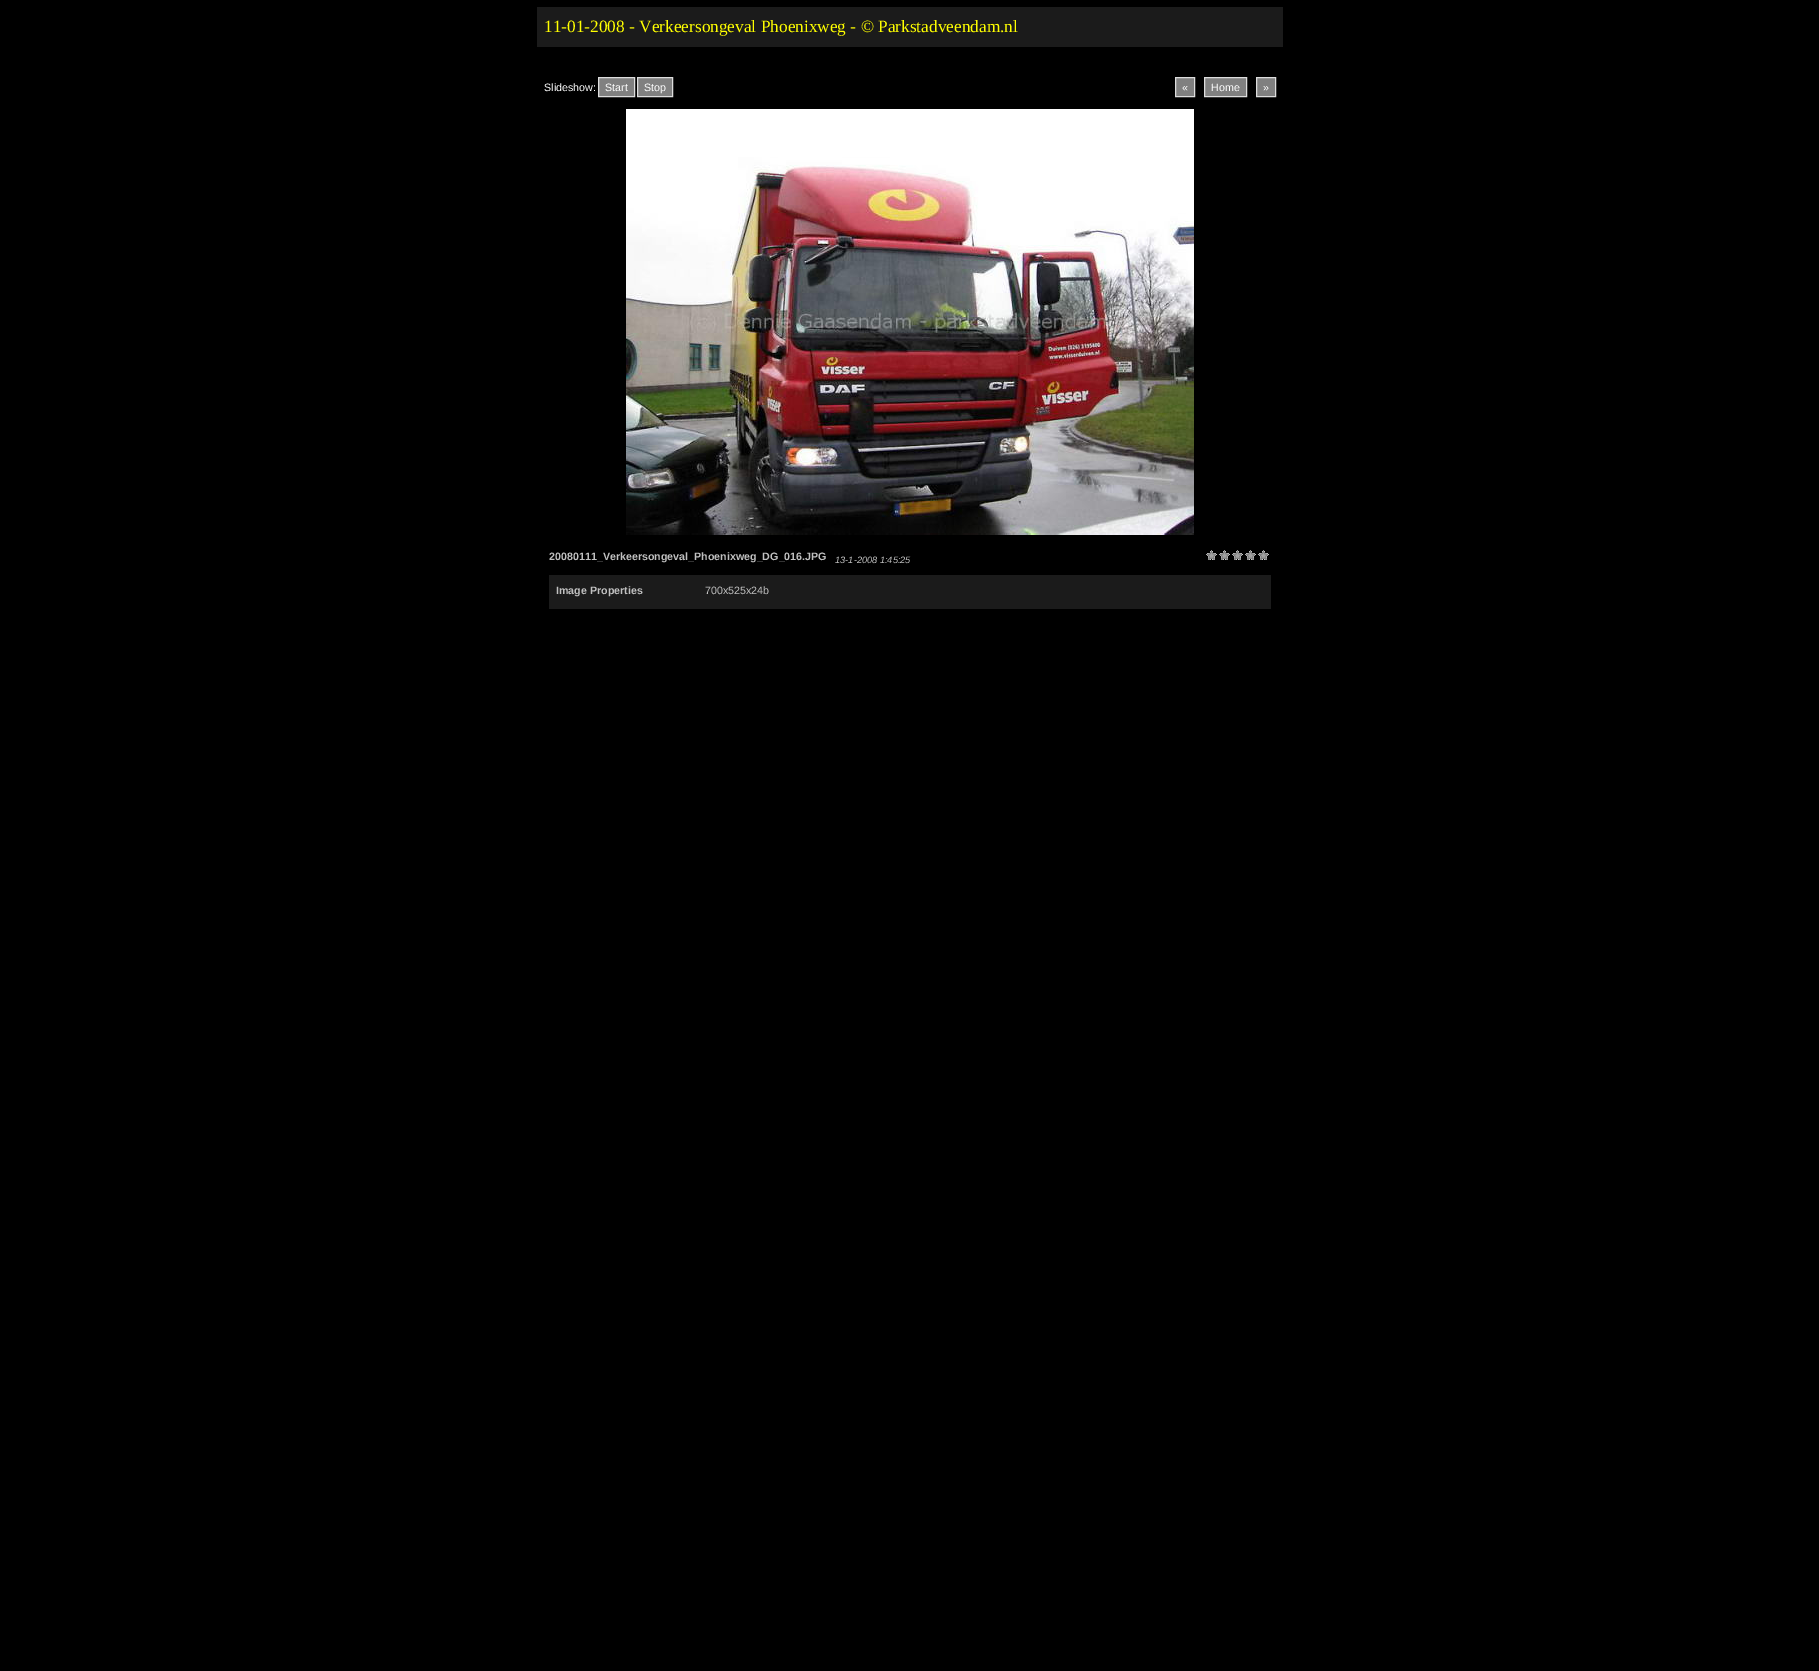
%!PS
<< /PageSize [1819 1671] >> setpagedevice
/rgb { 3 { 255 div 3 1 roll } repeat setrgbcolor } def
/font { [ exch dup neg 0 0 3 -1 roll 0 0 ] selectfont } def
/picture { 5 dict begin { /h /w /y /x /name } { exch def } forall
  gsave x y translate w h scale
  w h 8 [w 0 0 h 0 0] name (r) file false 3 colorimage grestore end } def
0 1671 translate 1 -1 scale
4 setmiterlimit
0 0 0 rgb
0 0 1819 1671 rectfill
27 27 27 rgb
537 7 746 40 rectfill
128 128 128 rgb
598.5 77.5 moveto 634.5 77.5 lineto 634.5 96.5 lineto 598.5 96.5 lineto closepath gsave fill grestore
221 221 221 rgb
stroke
128 128 128 rgb
637.5 77.5 moveto 672.5 77.5 lineto 672.5 96.5 lineto 637.5 96.5 lineto closepath gsave fill grestore
221 221 221 rgb
stroke
128 128 128 rgb
1175.5 77.5 moveto 1194.5 77.5 lineto 1194.5 96.5 lineto 1175.5 96.5 lineto closepath gsave fill grestore
221 221 221 rgb
stroke
128 128 128 rgb
1204.5 77.5 moveto 1246.5 77.5 lineto 1246.5 96.5 lineto 1204.5 96.5 lineto closepath gsave fill grestore
221 221 221 rgb
stroke
128 128 128 rgb
1256.5 77.5 moveto 1275.5 77.5 lineto 1275.5 96.5 lineto 1256.5 96.5 lineto closepath gsave fill grestore
221 221 221 rgb
stroke
(img/1.rgb) 626 109 568 426 picture
(img/2.rgb) 1206 550 63 10 picture
27 27 27 rgb
549 575 722 34 rectfill
/LiberationSerif-Regular 17.3 font
255 255 0 rgb
544 32 moveto (11-01-2008 - Verkeersongeval Phoenixweg - © Parkstadveendam.nl) show
/LiberationSans-Regular 10.7 font
255 255 255 rgb
[
  [(Slideshow:) 544 91]
  [(Start) 605 91]
  [(Stop) 644 91]
  [(«) 1182 91]
  [(Home) 1211 91]
  [(») 1263 91]
] { aload pop moveto show } forall
/LiberationSans-Bold 10.7 font
192 192 192 rgb
549 560 moveto (20080111_Verkeersongeval_Phoenixweg_DG_016.JPG) show
/LiberationSans-Italic 9.25 font
835 563 moveto (13-1-2008 1:45:25) show
/LiberationSans-Bold 10.7 font
556 594 moveto (Image Properties) show
/LiberationSans-Regular 10.7 font
705 594 moveto (700x525x24b) show
showpage
